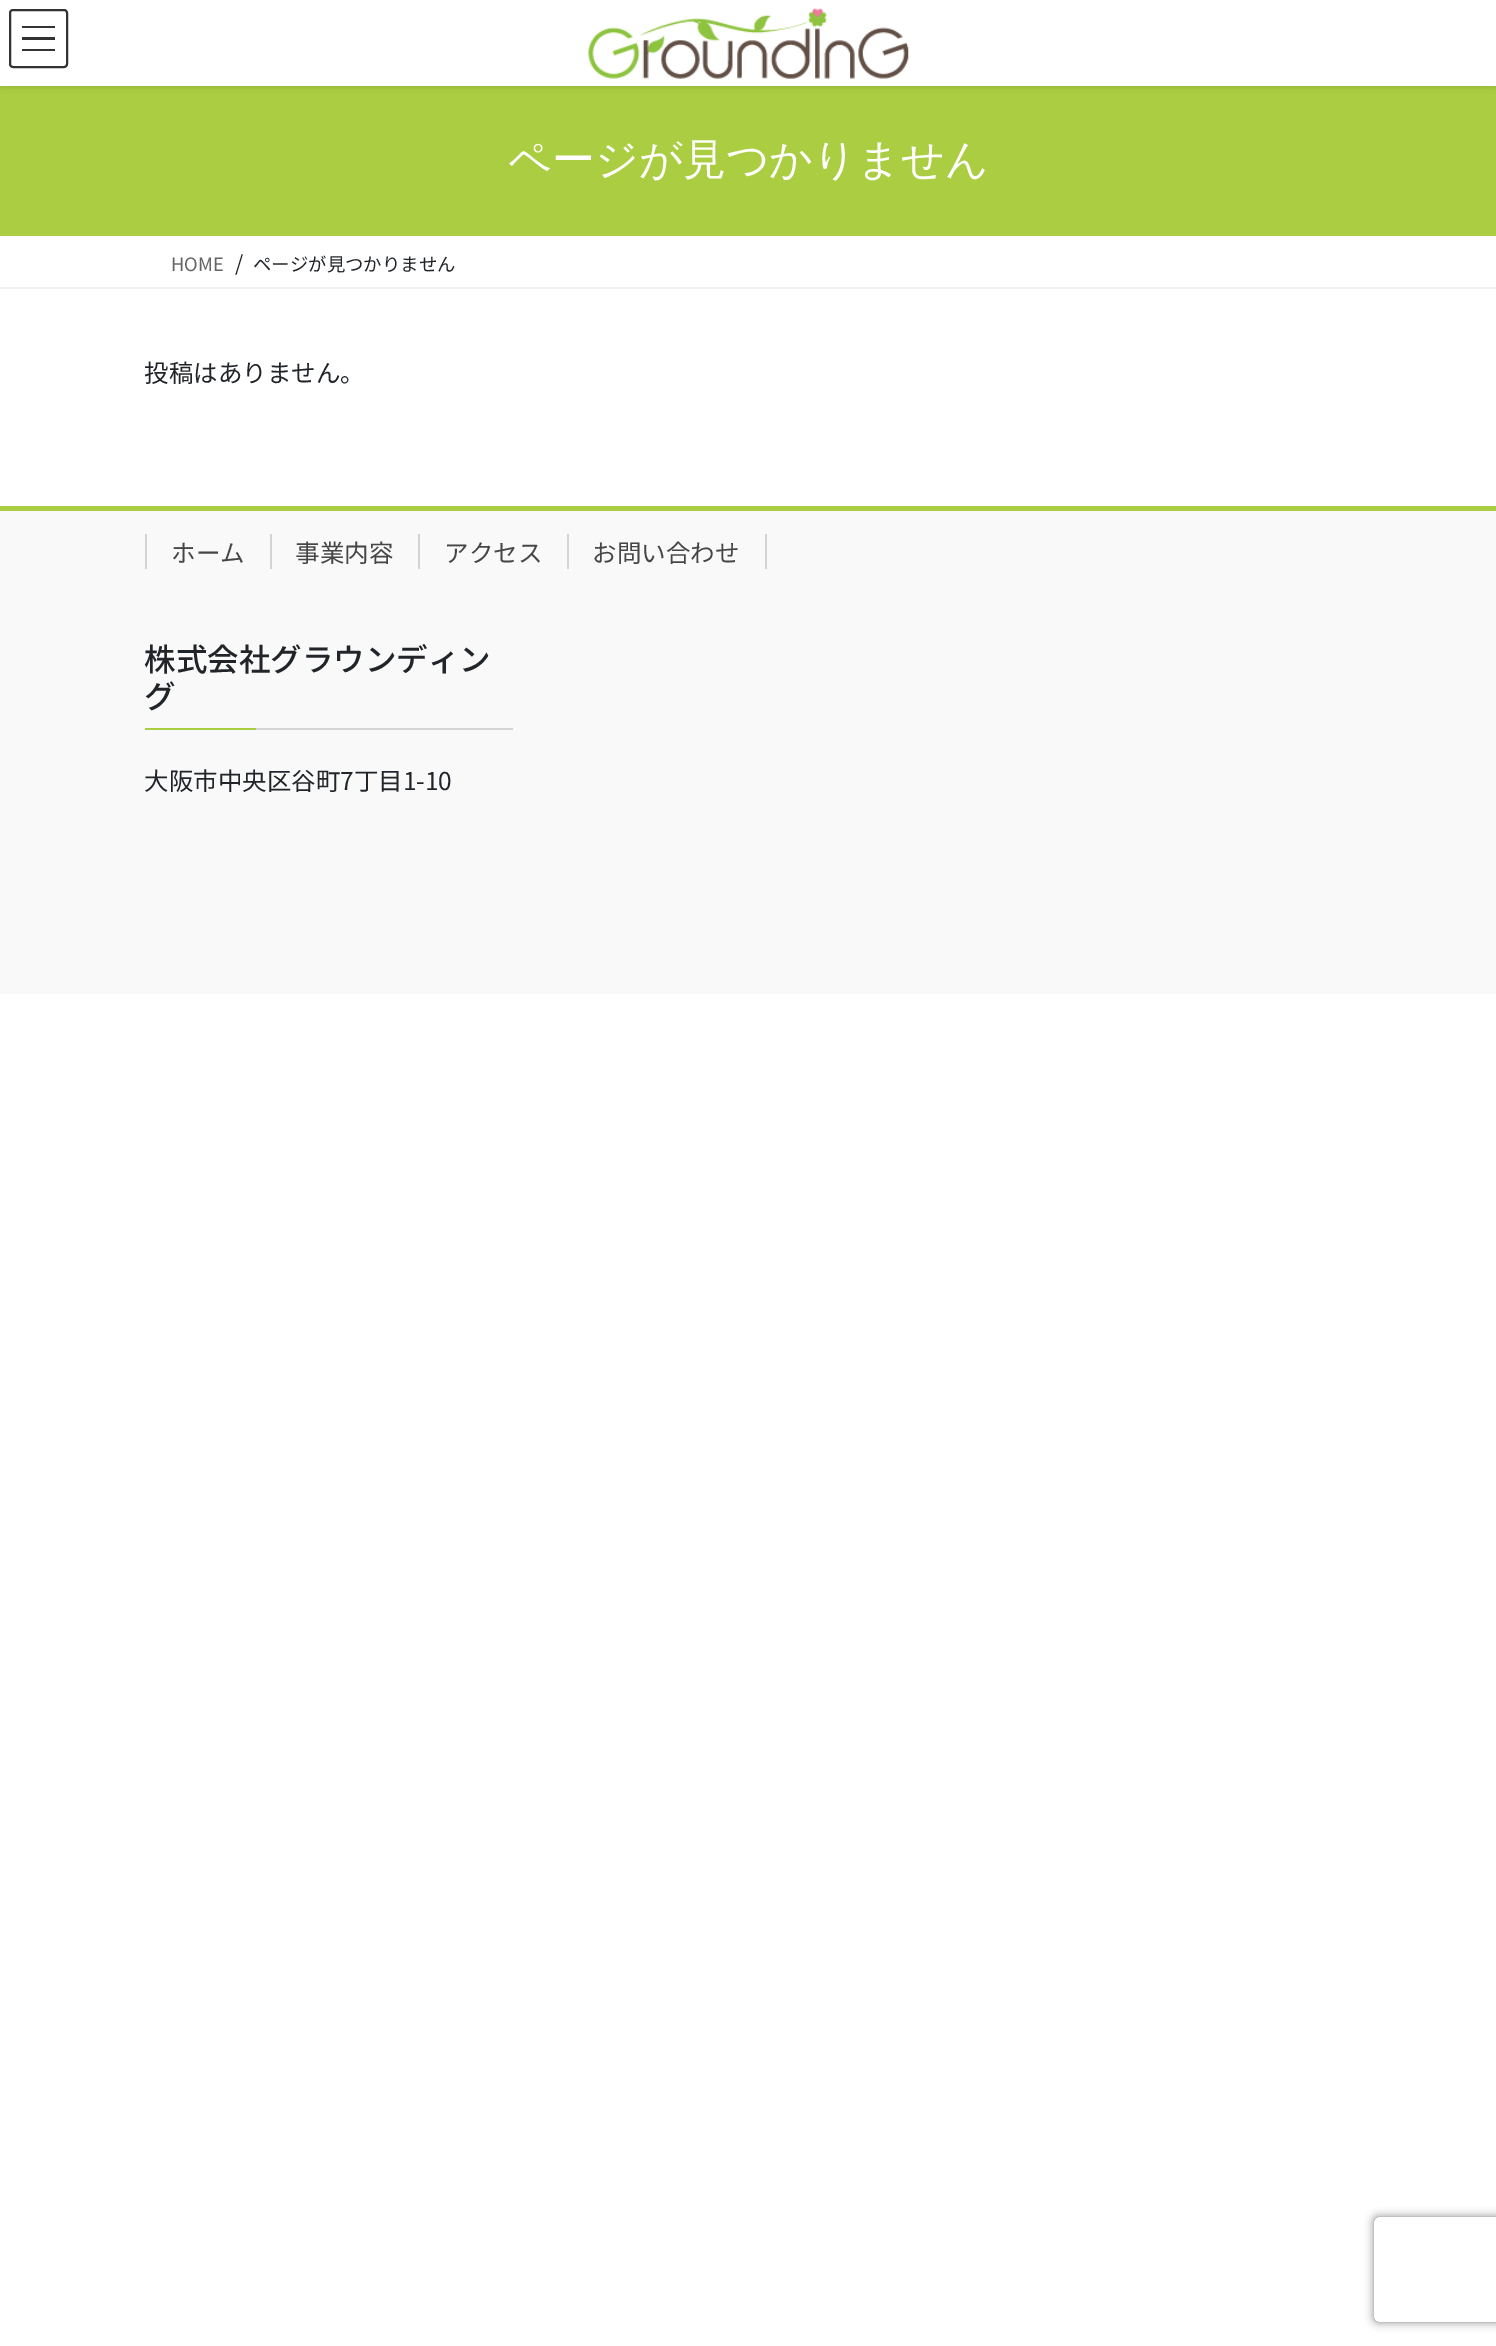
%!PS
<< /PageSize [1496 2346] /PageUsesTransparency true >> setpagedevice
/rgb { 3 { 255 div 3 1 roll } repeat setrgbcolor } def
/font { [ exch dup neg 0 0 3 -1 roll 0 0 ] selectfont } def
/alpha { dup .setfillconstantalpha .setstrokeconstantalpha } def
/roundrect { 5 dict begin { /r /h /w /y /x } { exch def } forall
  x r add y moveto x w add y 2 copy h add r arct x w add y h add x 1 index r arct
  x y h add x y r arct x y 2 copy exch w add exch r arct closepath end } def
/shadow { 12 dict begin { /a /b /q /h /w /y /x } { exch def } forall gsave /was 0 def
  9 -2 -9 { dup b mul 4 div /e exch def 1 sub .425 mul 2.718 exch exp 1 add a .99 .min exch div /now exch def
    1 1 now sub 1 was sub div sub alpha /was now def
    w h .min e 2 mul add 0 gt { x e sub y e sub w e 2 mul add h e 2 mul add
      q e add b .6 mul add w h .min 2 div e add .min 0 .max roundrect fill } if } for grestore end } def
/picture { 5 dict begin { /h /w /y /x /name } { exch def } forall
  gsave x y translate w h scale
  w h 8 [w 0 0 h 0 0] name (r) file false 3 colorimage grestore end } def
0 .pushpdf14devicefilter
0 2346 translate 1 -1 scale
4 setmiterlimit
255 255 255 rgb
0 0 1496 2346 rectfill
171 205 65 rgb
0 86 1496 150 rectfill
0 0 0 rgb
0 2 1496 86 0 2.5 0.1 shadow
255 255 255 rgb
0 0 1496 86 rectfill
(img/1.rgb) 588 8 321 71 picture
[
  [22 26 33 2 51 51 51]
  [22 37 33 3 51 51 51]
  [22 49 33 2 51 51 51]
] { aload pop rgb rectfill } forall
2 setlinewidth
10 10 57 57 3 roundrect stroke
[
  [0 287 1496 2 242 242 242]
  [0 511 1496 483 249 249 249]
  [0 506 1496 5 171 205 65]
  [145 534 2 35 212 212 212]
  [270 534 2 35 212 212 212]
  [418 534 2 35 212 212 212]
  [765 534 2 35 212 212 212]
  [567 534 2 35 212 212 212]
  [256 728 257 2 212 212 212]
  [145 728 111 2 171 205 65]
] { aload pop rgb rectfill } forall
gsave
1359 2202 moveto 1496 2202 lineto 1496 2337 lineto 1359 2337 lineto closepath 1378 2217 moveto 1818 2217 lineto 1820 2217 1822 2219 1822 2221 curveto 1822 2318 lineto 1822 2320 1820 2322 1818 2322 curveto 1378 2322 lineto 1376 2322 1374 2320 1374 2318 curveto 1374 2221 lineto 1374 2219 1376 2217 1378 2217 curveto closepath eoclip newpath
128 128 128 rgb
1374 2217 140 105 4 4.5 1 shadow
grestore
/WenQuanYiZenHei-Medium 42.9 font
255 255 255 rgb
508 174 moveto (ページが見つかりません) show
/NotoSansJP-Regular 18.4 font
102 102 102 rgb
171 271 moveto (HOME) show
/NotoSansJP-Regular 21 font
33 37 41 rgb
235 271 moveto (/) show
/NotoSansJP-Regular 18.4 font
253 271 moveto (ページが見つかりません) show
/NotoSansJP-Regular 24.5 font
144 382 moveto (投稿はありません。) show
70 70 70 rgb
[
  [(ホーム) 171 562]
  [(事業内容) 295 562]
  [(アクセス) 444 562]
  [(お問い合わせ) 592 562]
] { aload pop moveto show } forall
/NotoSansJP-Medium 31.5 font
33 37 41 rgb
144 671 moveto (株式会社グラウンディン) show
144 708 moveto (グ) show
/NotoSansJP-Regular 24.5 font
144 790 moveto (大阪市中央区谷町7丁目1-10) show
.poppdf14devicefilter showpage
